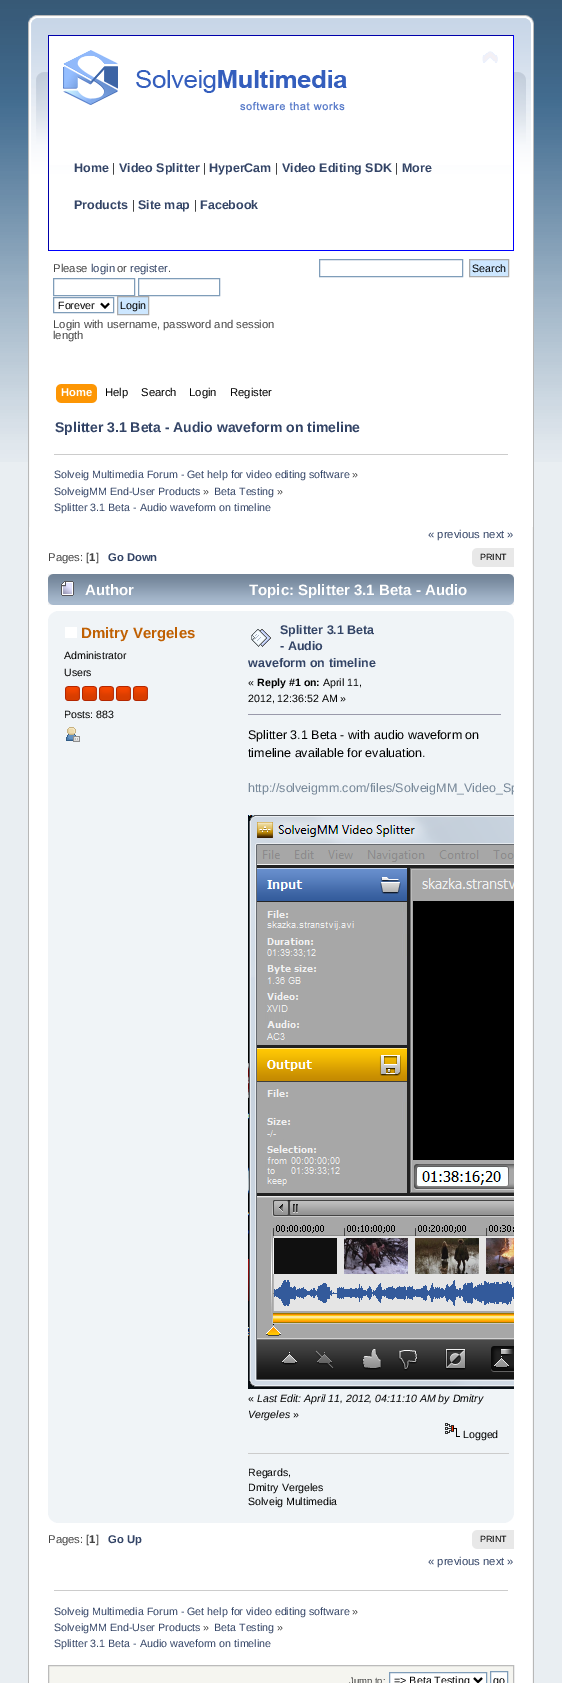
%!PS
<< /PageSize [562 1683] >> setpagedevice
/rgb { 3 { 255 div 3 1 roll } repeat setrgbcolor } def
/font { [ exch dup neg 0 0 3 -1 roll 0 0 ] selectfont } def
/picture { 5 dict begin { /h /w /y /x /name } { exch def } forall
  gsave x y translate w h scale
  w h 8 [w 0 0 h 0 0] name (r) file false 3 colorimage grestore end } def
0 1683 translate 1 -1 scale
4 setmiterlimit
233 238 242 rgb
0 0 562 1683 rectfill
(img/1.rgb) 0 0 562 462 picture
(img/2.rgb) 28 15 491 512 picture
(img/3.rgb) 519 15 15 512 picture
[
  [49 36 464 129 255 255 255]
  [48 35 466 1 0 0 170]
  [513 35 1 216 0 0 255]
  [48 250 466 1 0 0 255]
  [48 35 1 216 0 0 170]
] { aload pop rgb rectfill } forall
(img/4.rgb) 63 50 284 61 picture
(img/5.rgb) 482 51 16 12 picture
127 157 185 rgb
53.5 278.5 81 17 rectstroke
138.5 278.5 81 17 rectstroke
53.5 297.5 60 15 rectstroke
0 0 0 rgb
2 setlinewidth
101 303.5 moveto 105 307.5 lineto 109 303.5 lineto stroke
205 231 255 rgb
117.5 296.5 moveto 148.5 296.5 lineto 148.5 314.5 lineto 117.5 314.5 lineto closepath gsave fill grestore
170 170 170 rgb
1 setlinewidth
stroke
127 157 185 rgb
319.5 259.5 143 17 rectstroke
205 231 255 rgb
469.5 259.5 moveto 508.5 259.5 lineto 508.5 276.5 lineto 469.5 276.5 lineto closepath gsave fill grestore
170 170 170 rgb
stroke
(img/6.rgb) 61 384 36 19 picture
(img/7.rgb) 56 384 5 19 picture
[
  [54 454 454 1 204 204 204]
  [29 527 503 1156 255 255 255]
  [28 527 1 1156 183 183 183]
] { aload pop rgb rectfill } forall
(img/8.rgb) 532 527 2 1156 picture
(img/9.rgb) 472 548 35 19 picture
232 232 232 rgb
507 548 7 19 rectfill
(img/10.rgb) 48 574 461 31 picture
(img/11.rgb) 509 574 5 31 picture
(img/12.rgb) 61 581 13 15 picture
240 244 247 rgb
48 611 466 912 rectfill
(img/13.rgb) 48 611 8 8 picture
(img/14.rgb) 506 611 8 8 picture
255 255 255 rgb
65 627 12 11 rectfill
(img/15.rgb) 65 686 15 15 picture
(img/15.rgb) 82 686 15 15 picture
(img/15.rgb) 99 686 15 15 picture
(img/15.rgb) 116 686 15 15 picture
(img/15.rgb) 133 686 15 15 picture
(img/16.rgb) 66 727 14 15 picture
(img/17.rgb) 251 629 20 18 picture
153 153 170 rgb
248 714 253 1 rectfill
(img/18.rgb) 248 815 266 574 picture
(img/19.rgb) 445 1423 15 14 picture
204 204 204 rgb
248 1453 261 1 rectfill
(img/20.rgb) 48 1515 8 8 picture
(img/21.rgb) 506 1515 8 8 picture
(img/9.rgb) 472 1530 35 19 picture
232 232 232 rgb
507 1530 7 19 rectfill
204 204 204 rgb
54 1590 454 1 rectfill
245 245 240 rgb
48.5 1665.5 moveto 513.5 1665.5 lineto 513.5 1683.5 lineto 48.5 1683.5 lineto closepath gsave fill grestore
187 187 187 rgb
stroke
255 255 255 rgb
389.5 1672.5 moveto 486.5 1672.5 lineto 486.5 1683.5 lineto 389.5 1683.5 lineto closepath gsave fill grestore
127 157 185 rgb
stroke
0 0 0 rgb
2 setlinewidth
474 1678 moveto 478 1682 lineto 482 1678 lineto stroke
255 255 255 rgb
490.5 1671.5 moveto 507.5 1671.5 lineto 507.5 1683.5 lineto 490.5 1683.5 lineto closepath gsave fill grestore
127 157 185 rgb
1 setlinewidth
stroke
/LiberationSans-Bold 12.5 font
51 68 102 rgb
74 172 moveto (Home) show
/LiberationSans-Regular 12.5 font
68 68 68 rgb
112 172 moveto (|) show
/LiberationSans-Bold 12.5 font
51 68 102 rgb
119 172 moveto (Video Splitter) show
/LiberationSans-Regular 12.5 font
68 68 68 rgb
203 172 moveto (|) show
/LiberationSans-Bold 12.5 font
51 68 102 rgb
209 172 moveto (HyperCam) show
/LiberationSans-Regular 12.5 font
68 68 68 rgb
275 172 moveto (|) show
/LiberationSans-Bold 12.5 font
51 68 102 rgb
282 172 moveto (Video Editing SDK) show
/LiberationSans-Regular 12.5 font
68 68 68 rgb
395 172 moveto (|) show
/LiberationSans-Bold 12.5 font
51 68 102 rgb
402 172 moveto (More) show
74 209 moveto (Products) show
/LiberationSans-Regular 12.5 font
68 68 68 rgb
132 209 moveto (|) show
/LiberationSans-Bold 12.5 font
51 68 102 rgb
138 209 moveto (Site map) show
/LiberationSans-Regular 12.5 font
68 68 68 rgb
194 209 moveto (|) show
/LiberationSans-Bold 12.5 font
51 68 102 rgb
200 209 moveto (Facebook) show
/LiberationSans-Regular 11.25 font
68 68 68 rgb
53 272 moveto (Please) show
51 68 102 rgb
91 272 moveto (login) show
68 68 68 rgb
117 272 moveto (or) show
51 68 102 rgb
130 272 moveto (register) show
68 68 68 rgb
168 272 moveto (.) show
/LiberationSans-Regular 10.7 font
0 0 0 rgb
58 309 moveto (Forever) show
120 309 moveto (Login) show
/LiberationSans-Regular 11.25 font
68 68 68 rgb
53 328 moveto (Login with username, password and session) show
53 339 moveto (length) show
/LiberationSans-Regular 10.7 font
0 0 0 rgb
472 272 moveto (Search) show
/LiberationSans-Bold 11.25 font
255 255 255 rgb
61 396 moveto (Home) show
/LiberationSans-Regular 11.25 font
0 0 0 rgb
[
  [(Help) 105 396]
  [(Search) 141 396]
  [(Login) 189 396]
  [(Register) 230 396]
] { aload pop moveto show } forall
/LiberationSans-Bold 14 font
51 68 102 rgb
55 432 moveto (Splitter 3.1 Beta - Audio waveform on timeline) show
/LiberationSans-Regular 10.7 font
54 478 moveto (Solveig Multimedia Forum - Get help for video editing software) show
68 68 68 rgb
352 478 moveto (») show
51 68 102 rgb
54 495 moveto (SolveigMM End-User Products) show
68 68 68 rgb
203 495 moveto (») show
51 68 102 rgb
214 495 moveto (Beta Testing) show
68 68 68 rgb
277 495 moveto (») show
51 68 102 rgb
54 511 moveto (Splitter 3.1 Beta - Audio waveform on timeline) show
/LiberationSans-Regular 11.25 font
428 538 moveto (« previous next ») show
68 68 68 rgb
48 561 moveto (Pages: [) show
/LiberationSans-Bold 11.25 font
89 561 moveto (1) show
/LiberationSans-Regular 11.25 font
96 561 moveto (]) show
/LiberationSans-Bold 11.25 font
51 68 102 rgb
108 561 moveto (Go Down) show
/LiberationSans-Regular 9 font
0 0 0 rgb
480 560 moveto (PRINT) show
/LiberationSans-Bold 15 font
255 255 255 rgb
85 595 moveto (Author) show
249 595 moveto (Topic: Splitter 3.1 Beta - Audio) show
192 96 2 rgb
81 638 moveto (Dmitry Vergeles) show
/LiberationSans-Regular 10.6 font
0 0 0 rgb
[
  [(Administrator) 64 659]
  [(Users) 64 676]
  [(Posts: 883) 64 718]
] { aload pop moveto show } forall
/LiberationSans-Bold 12.5 font
51 68 102 rgb
[
  [(Splitter 3.1 Beta) 280 634]
  [(- Audio) 280 650]
  [(waveform on timeline) 248 667]
] { aload pop moveto show } forall
/LiberationSans-Regular 10.6 font
0 0 0 rgb
248 686 moveto («) show
/LiberationSans-Bold 10.6 font
257 686 moveto (Reply #1 on:) show
/LiberationSans-Regular 10.6 font
323 686 moveto (April 11,) show
248 702 moveto (2012, 12:36:52 AM ») show
/LiberationSans-Regular 12.5 font
248 739 moveto (Splitter 3.1 Beta - with audio waveform on) show
248 757 moveto (timeline available for evaluation.) show
gsave
248 713 266 677 rectclip
119 136 153 rgb
248 792 moveto (http://solveigmm.com/files/SolveigMM_Video_Sp) show
grestore
/LiberationSans-Regular 10.6 font
248 1402 moveto («) show
/LiberationSans-Italic 10.6 font
257 1402 moveto (Last Edit: April 11, 2012, 04:11:10 AM by Dmitry) show
248 1418 moveto (Vergeles) show
/LiberationSans-Regular 10.6 font
[
  [(») 293 1418]
  [(Logged) 463 1438]
  [(Regards,) 248 1476]
  [(Dmitry Vergeles) 248 1491]
  [(Solveig Multimedia) 248 1505]
] { aload pop moveto show } forall
/LiberationSans-Regular 11.25 font
68 68 68 rgb
48 1543 moveto (Pages: [) show
/LiberationSans-Bold 11.25 font
89 1543 moveto (1) show
/LiberationSans-Regular 11.25 font
96 1543 moveto (]) show
/LiberationSans-Bold 11.25 font
51 68 102 rgb
108 1543 moveto (Go Up) show
/LiberationSans-Regular 9 font
0 0 0 rgb
480 1542 moveto (PRINT) show
/LiberationSans-Regular 11.25 font
51 68 102 rgb
428 1565 moveto (« previous next ») show
/LiberationSans-Regular 10.7 font
54 1615 moveto (Solveig Multimedia Forum - Get help for video editing software) show
68 68 68 rgb
352 1615 moveto (») show
51 68 102 rgb
54 1631 moveto (SolveigMM End-User Products) show
68 68 68 rgb
203 1631 moveto (») show
51 68 102 rgb
214 1631 moveto (Beta Testing) show
68 68 68 rgb
277 1631 moveto (») show
51 68 102 rgb
54 1647 moveto (Splitter 3.1 Beta - Audio waveform on timeline) show
/LiberationSans-Regular 9.5 font
68 68 68 rgb
349 1684 moveto (Jump to:) show
/LiberationSans-Regular 10.7 font
0 0 0 rgb
394 1684 moveto (=> Beta Testing) show
493 1684 moveto (go) show
showpage
